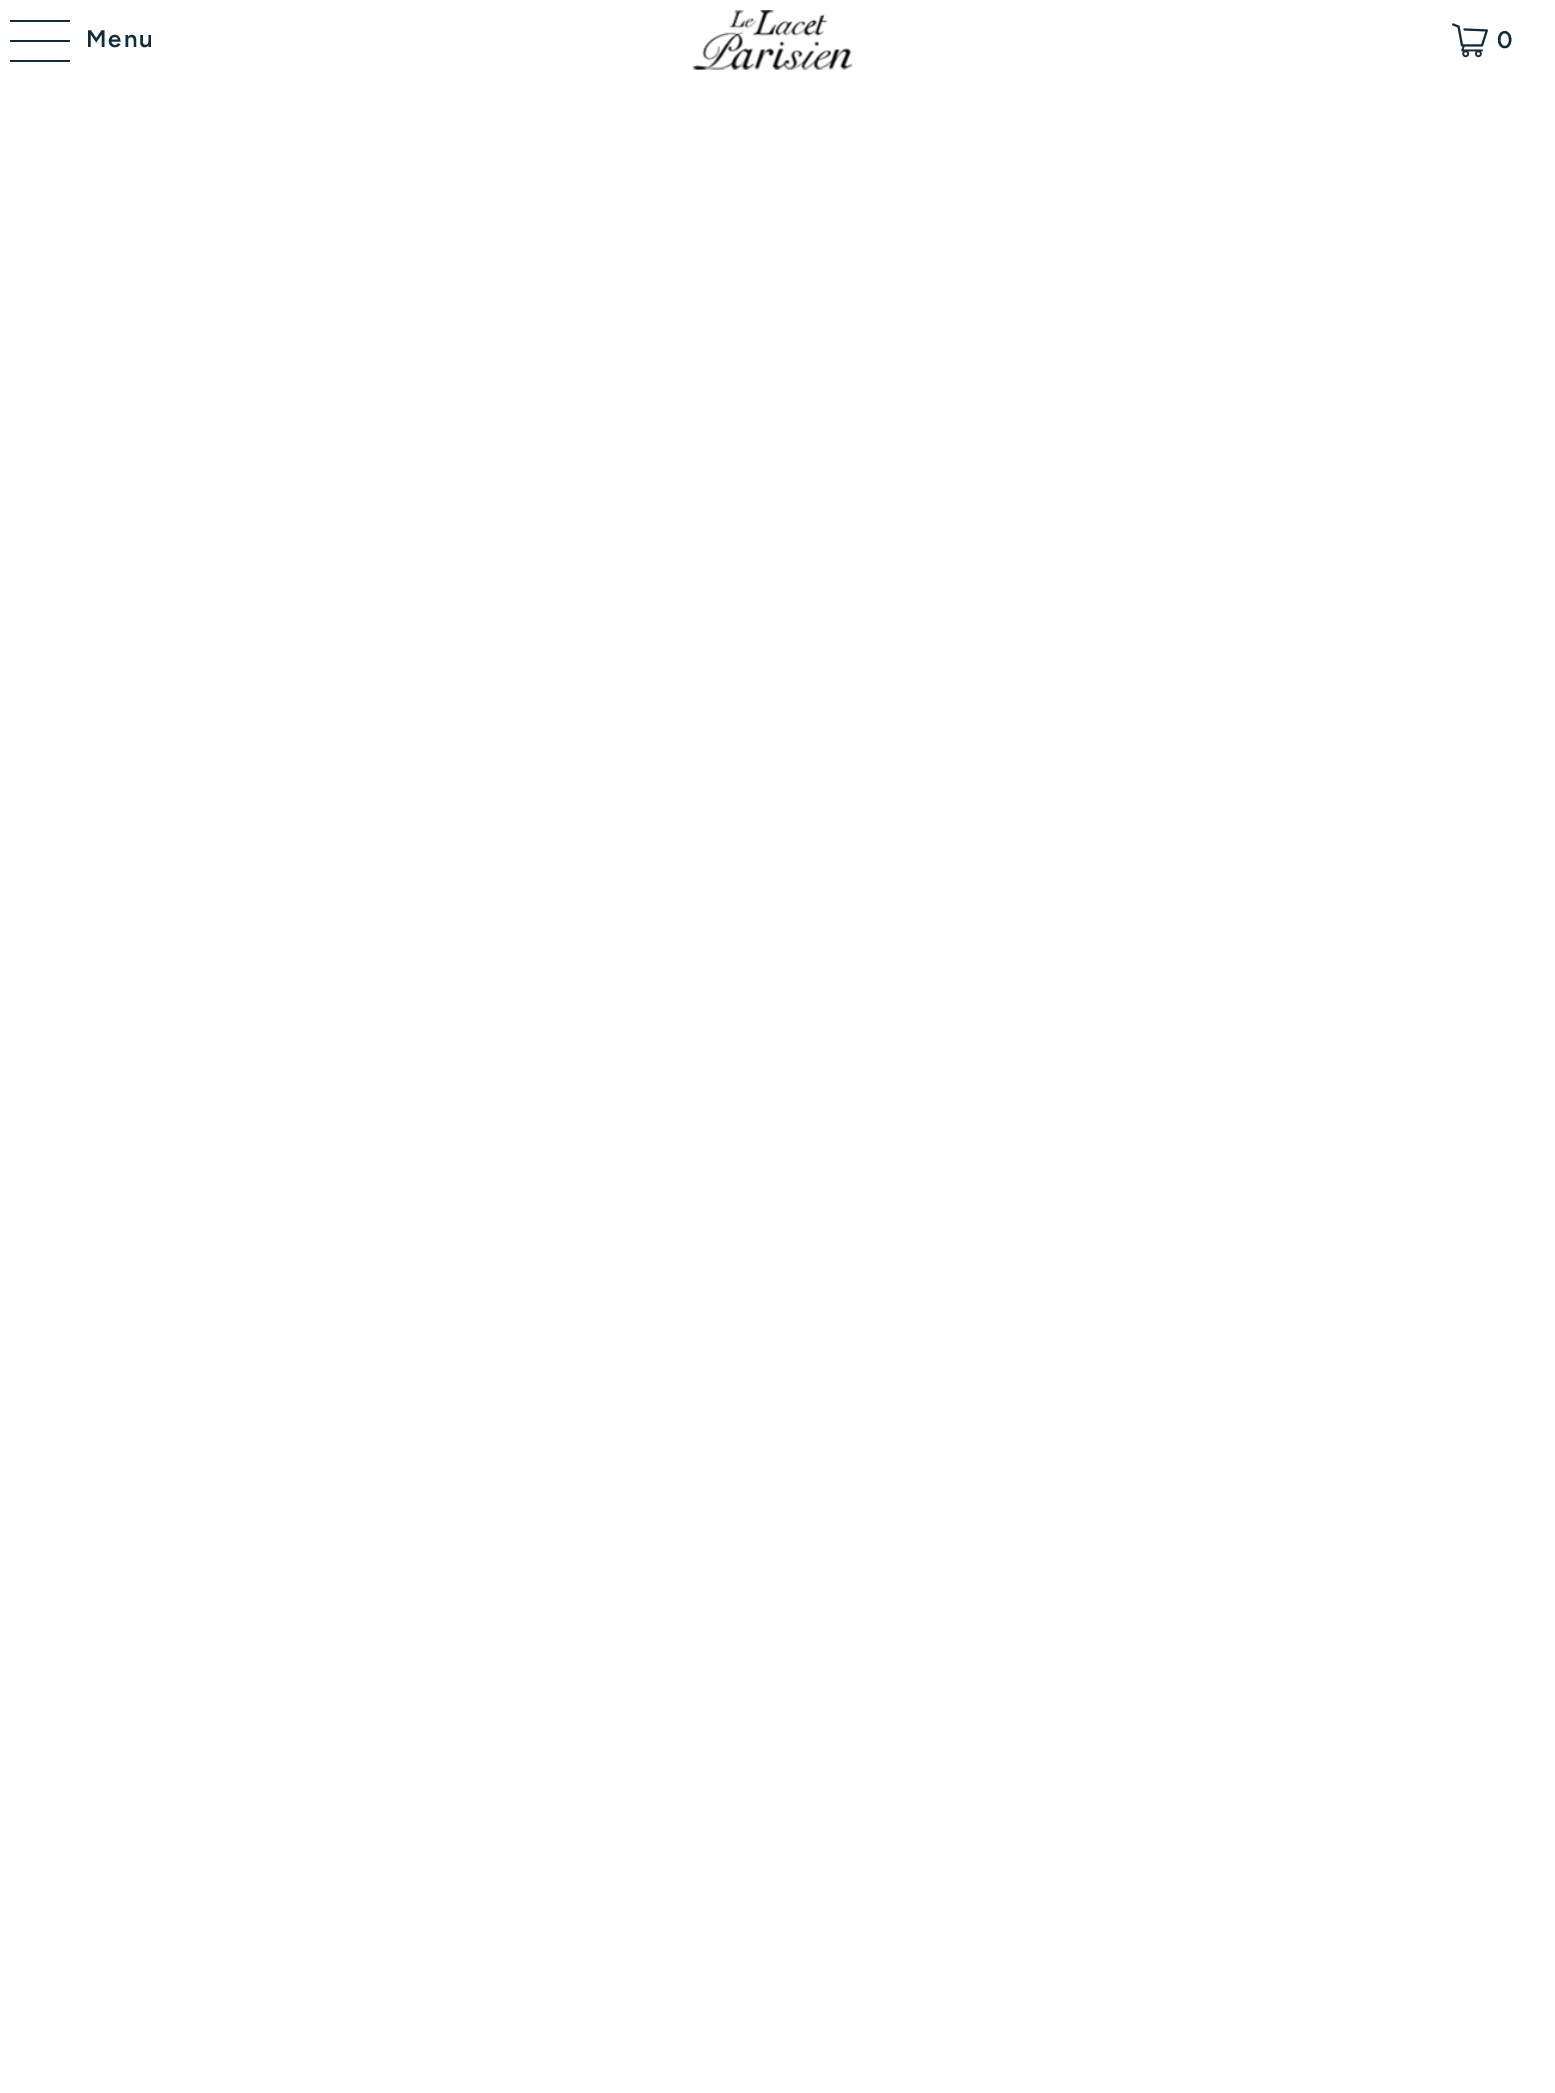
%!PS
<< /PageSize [1555 2093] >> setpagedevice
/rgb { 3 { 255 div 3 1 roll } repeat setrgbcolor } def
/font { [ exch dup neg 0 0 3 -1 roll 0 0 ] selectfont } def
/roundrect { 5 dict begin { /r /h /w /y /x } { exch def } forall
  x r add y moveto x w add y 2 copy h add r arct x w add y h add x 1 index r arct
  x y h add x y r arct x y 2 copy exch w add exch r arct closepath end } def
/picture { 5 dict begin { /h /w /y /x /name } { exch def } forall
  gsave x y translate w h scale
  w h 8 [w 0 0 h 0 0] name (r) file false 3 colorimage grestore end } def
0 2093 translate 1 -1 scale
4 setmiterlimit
255 255 255 rgb
0 0 1555 2093 rectfill
20 43 59 rgb
10 20 60 2 1 roundrect fill
10 40 60 2 1 roundrect fill
10 60 60 2 1 roundrect fill
(img/1.rgb) 692 10 161 60 picture
(img/2.rgb) 1452 23 36 35 picture
/Figtree-SemiBold 24 font
86 47 moveto 2 0 (Menu) ashow
1497 48 moveto 2 0 (0) ashow
showpage
